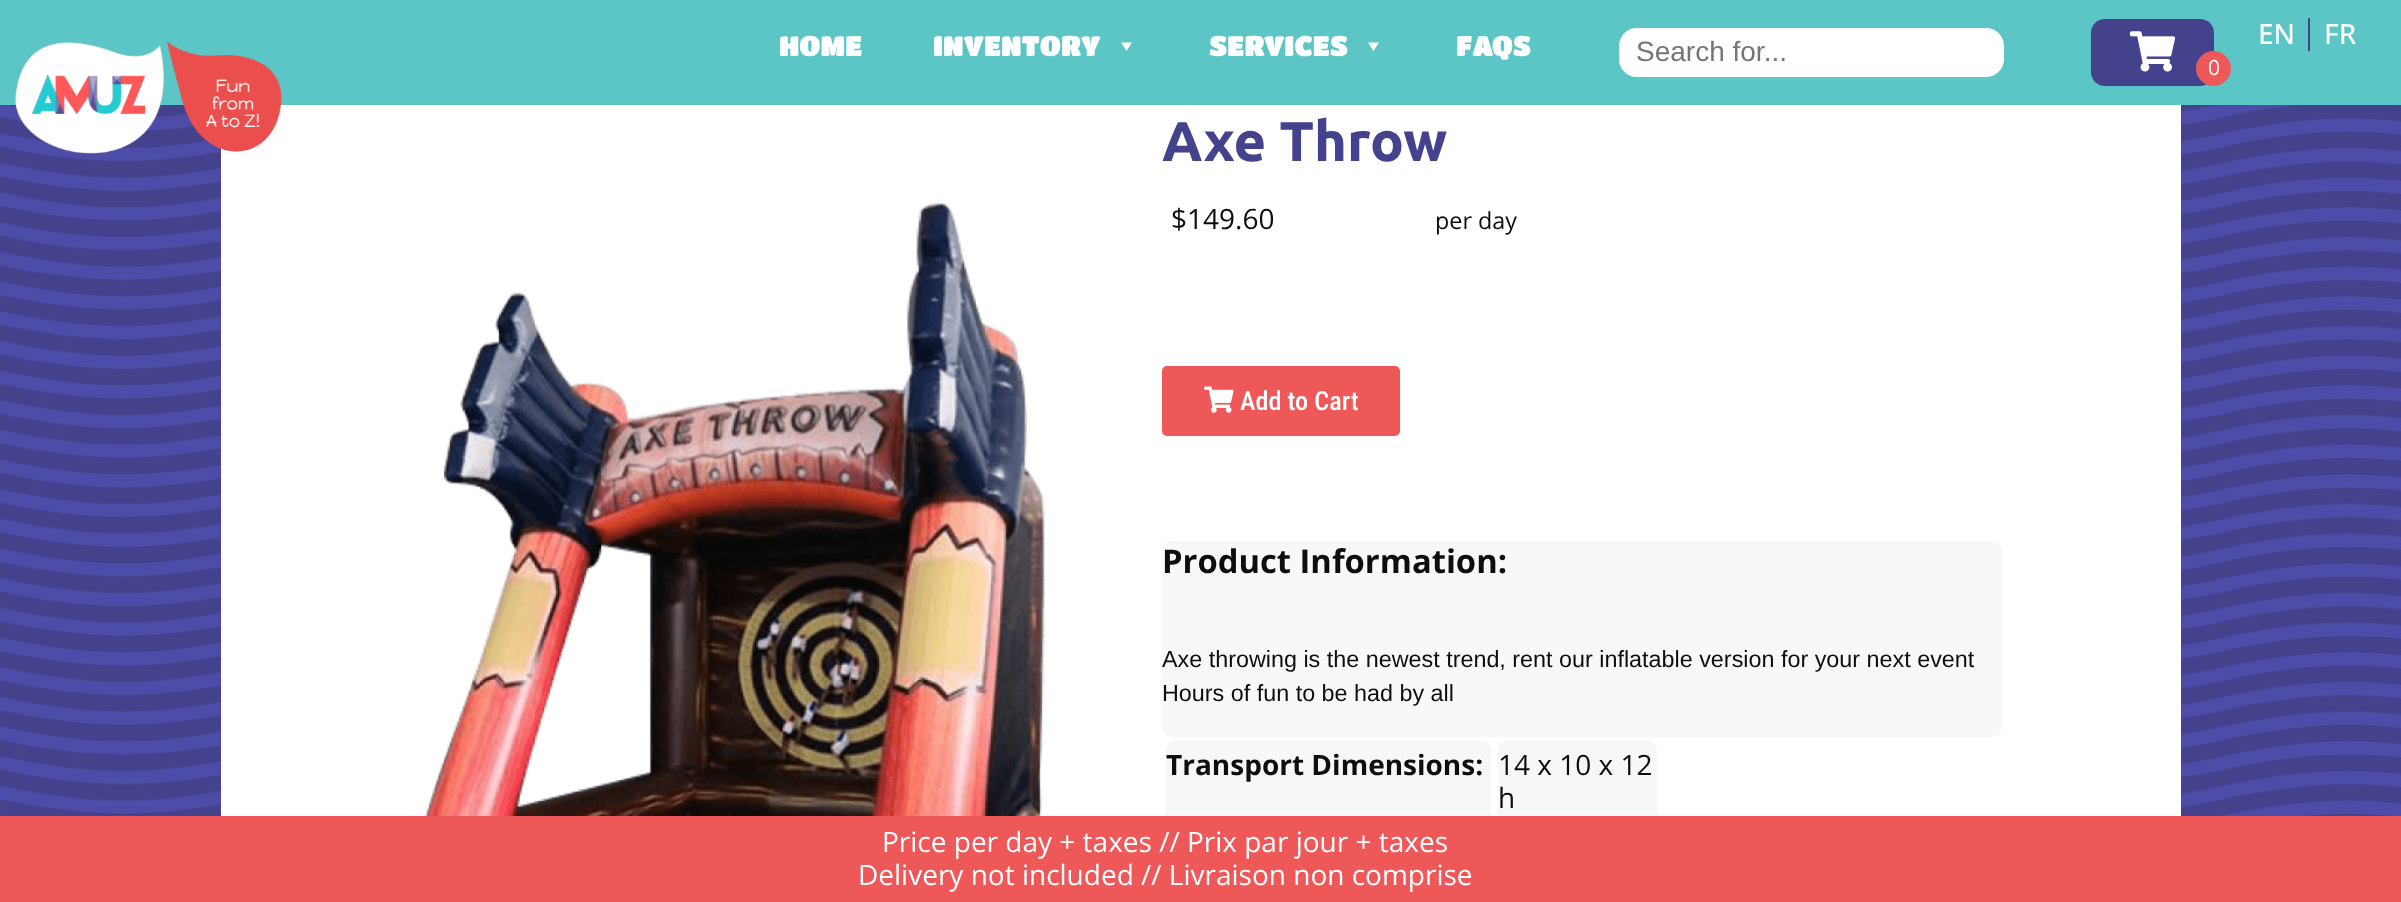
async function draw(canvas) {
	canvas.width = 2401;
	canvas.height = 902;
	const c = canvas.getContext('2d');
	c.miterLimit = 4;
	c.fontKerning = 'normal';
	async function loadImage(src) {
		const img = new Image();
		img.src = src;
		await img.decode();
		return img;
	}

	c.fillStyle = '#44428c';
	c.fillRect(0, 0, 2401, 902);
	c.fillStyle = '#5cc5c6';
	c.fillRect(0, 0, 2401, 105);
	c.drawImage(await loadImage('img3.png'), 0, 105, 2401, 711);
	c.fillStyle = '#fff';
	c.fillRect(221, 105, 1960, 711);
	c.drawImage(await loadImage('img1.png'), 15, 41, 267, 113);
	c.font = '28px Titan One';
	c.fillText('HOME', 779, 56);
	c.fillText('INVENTORY', 933, 56);
	c.beginPath();
	c.moveTo(1132, 42.5);
	c.lineTo(1126.5, 51);
	c.lineTo(1121, 42.5);
	c.closePath();
	c.fill();
	c.fillText('SERVICES', 1209, 56);
	c.beginPath();
	c.moveTo(1379, 42.5);
	c.lineTo(1373.5, 51);
	c.lineTo(1368, 42.5);
	c.closePath();
	c.fill();
	c.fillText('FAQS', 1456, 56);
	c.beginPath();
	c.roundRect(1619, 28, 385, 49, 18);
	c.fill();
	c.font = '28px Liberation Sans';
	c.fillStyle = '#757575';
	c.fillText('Search for...', 1636, 61);
	c.fillStyle = '#44428c';
	c.beginPath();
	c.roundRect(2091, 19, 123, 67, 14);
	c.fill();
	c.drawImage(await loadImage('img2.png'), 2129, 31, 47, 41);
	c.fillStyle = '#ee5859';
	c.beginPath();
	c.arc(2213.5, 68.5, 17.5, 0, 2 * Math.PI);
	c.fill();
	c.font = '21px Open Sans';
	c.fillStyle = '#fff';
	c.fillText('0', 2208, 75);
	c.font = '500 28px Open Sans';
	c.fillText('EN', 2258, 44);
	c.fillStyle = '#44428c';
	c.fillRect(2308, 18, 2, 33);
	c.fillStyle = '#fff';
	c.fillText('FR', 2324, 44);
	c.drawImage(await loadImage('img4.png'), 424, 202, 622, 614);
	c.font = 'bold 56px Ubuntu';
	c.fillStyle = '#44428c';
	c.fillText('Axe Throw', 1162, 161);
	c.font = '28px Open Sans';
	c.fillStyle = '#0e0e0e';
	c.fillText('$149.60', 1171, 229);
	c.font = '23.35px Open Sans';
	c.fillText('per day', 1435, 229);
	c.fillStyle = '#ee5859';
	c.beginPath();
	c.roundRect(1162, 366, 238, 70, 5);
	c.fill();
	c.drawImage(await loadImage('img5.png'), 1204, 386, 30, 27);
	c.font = '500 26.25px Roboto Condensed';
	c.fillStyle = '#fff';
	c.fillText('Add to Cart', 1240, 410);
	c.fillStyle = '#f8f8f8';
	c.beginPath();
	c.roundRect(1162, 541, 840, 196, 11);
	c.fill();
	c.font = 'bold 32.75px Open Sans';
	c.fillStyle = '#0e0e0e';
	c.fillText('Product Information:', 1162, 573);
	c.font = '23.35px Liberation Sans';
	c.fillText('Axe throwing is the newest trend, rent our inflatable version for your next event', 1162, 667);
	c.fillText('Hours of fun to be had by all', 1162, 701);
	c.fillStyle = '#f7f7f7';
	c.beginPath();
	c.roundRect(1166, 740, 325, 84, 11);
	c.fill();
	c.font = 'bold 28px Open Sans';
	c.fillStyle = '#0e0e0e';
	c.fillText('Transport Dimensions:', 1166, 775);
	c.fillStyle = '#f7f7f7';
	c.beginPath();
	c.roundRect(1498, 740, 159, 84, 11);
	c.fill();
	c.font = '28px Open Sans';
	c.fillStyle = '#0e0e0e';
	c.fillText('14 x 10 x 12', 1498, 775);
	c.fillText('h', 1498, 808);
	c.fillStyle = '#ee5859';
	c.fillRect(0, 816, 2401, 86);
	c.fillStyle = '#fff';
	c.fillText('Price per day + taxes // Prix par jour + taxes', 882, 852);
	c.fillText('Delivery not included // Livraison non comprise', 858, 885);
}

draw(document.querySelector('canvas'));
